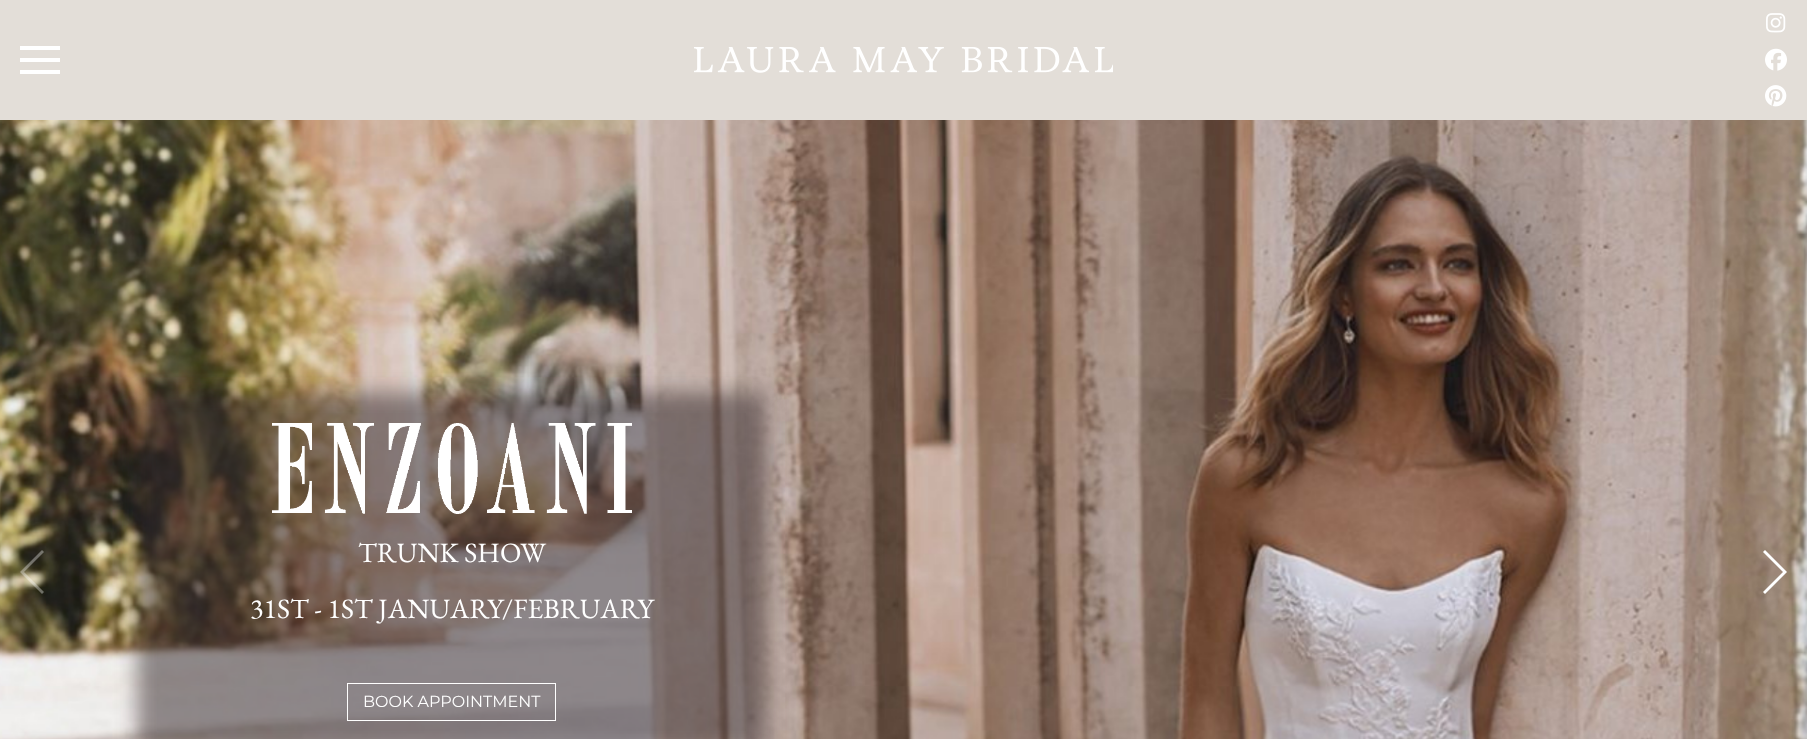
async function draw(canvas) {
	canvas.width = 1807;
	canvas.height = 739;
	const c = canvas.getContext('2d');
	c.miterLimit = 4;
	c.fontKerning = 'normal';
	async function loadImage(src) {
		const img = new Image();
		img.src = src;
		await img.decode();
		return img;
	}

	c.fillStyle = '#fff';
	c.fillRect(0, 0, 1807, 739);
	for (const [x, y, w, h, color] of [
		[0, 0, 1807, 120, '#e3ded8'],
		[20, 46, 40, 4, '#fff'],
		[20, 58, 40, 4, '#fff'],
		[20, 70, 40, 4, '#fff'],
	]) {
		c.fillStyle = color;
		c.fillRect(x, y, w, h);
	}
	c.drawImage(await loadImage('img1.png'), 694, 47, 419, 26);
	c.drawImage(await loadImage('img2.png'), 1766, 13, 20, 20);
	c.drawImage(await loadImage('img3.png'), 1765, 48, 22, 23);
	c.drawImage(await loadImage('img4.png'), 1765, 85, 22, 22);
	c.drawImage(await loadImage('img5.png'), 0, 120, 1807, 619);
	c.fillStyle = '#ffffff59';
	c.beginPath();
	c.moveTo(20, 572);
	c.lineTo(42, 550);
	c.lineTo(44, 552);
	c.lineTo(24, 572);
	c.lineTo(44, 592);
	c.lineTo(42, 594);
	c.closePath();
	c.fill();
	c.save();
	c.beginPath();
	c.moveTo(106, 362);
	c.lineTo(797, 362);
	c.lineTo(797, 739);
	c.lineTo(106, 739);
	c.closePath();
	c.moveTo(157, 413);
	c.lineTo(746, 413);
	c.lineTo(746, 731);
	c.lineTo(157, 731);
	c.closePath();
	c.clip('evenodd');
	c.fillStyle = '#362c2d87';
	c.filter = 'blur(10px)';
	c.beginPath();
	c.rect(137, 393, 629, 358);
	c.fill();
	c.filter = 'none';
	c.restore();
	c.fillStyle = '#362c2d87';
	c.fillRect(157, 413, 589, 318);
	c.drawImage(await loadImage('img6.png'), 272, 423, 360, 91);
	c.font = '28px EB Garamond';
	c.fillStyle = '#fff';
	c.fillText('TRUNK SHOW', 358, 562);
	c.fillText('31ST - 1ST JANUARY/FEBRUARY', 250, 618);
	c.strokeStyle = '#fff';
	c.strokeRect(347.5, 683.5, 208, 37);
	c.font = '16px Montserrat';
	c.fillText('BOOK APPOINTMENT', 363, 707);
	c.beginPath();
	c.moveTo(1787, 572);
	c.lineTo(1765, 594);
	c.lineTo(1763, 592);
	c.lineTo(1783, 572);
	c.lineTo(1763, 552);
	c.lineTo(1765, 550);
	c.closePath();
	c.fill();
}

draw(document.querySelector('canvas'));
